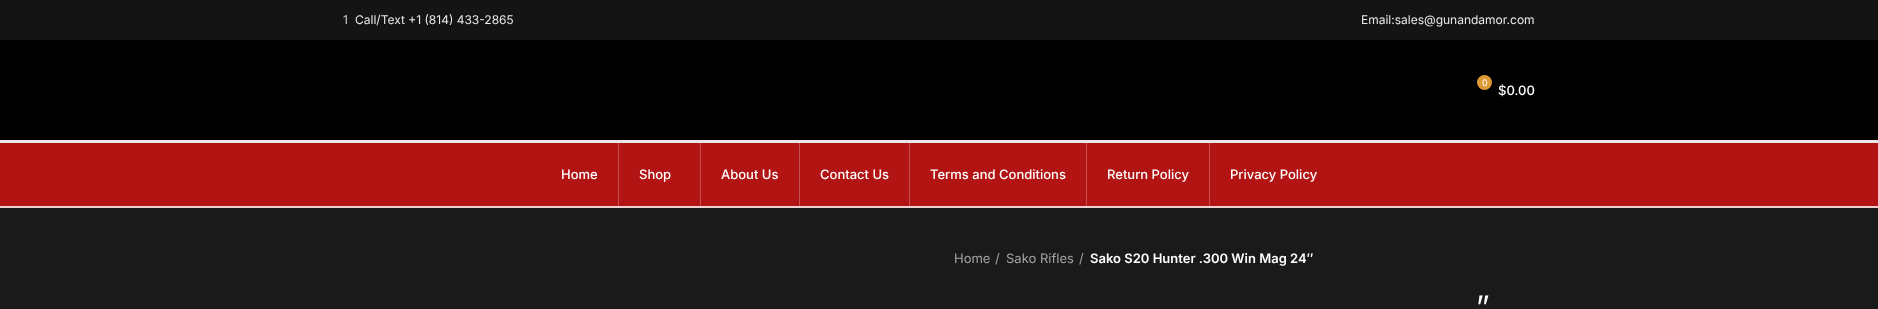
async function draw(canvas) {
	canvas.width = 1878;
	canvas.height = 309;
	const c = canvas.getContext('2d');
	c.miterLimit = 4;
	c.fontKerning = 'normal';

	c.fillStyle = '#1a1a1a';
	c.fillRect(0, 0, 1878, 309);
	c.fillStyle = '#141415';
	c.fillRect(0, 0, 1878, 40);
	c.font = '12px Inter';
	c.fillStyle = '#d0d0d0';
	c.fillText('1', 343, 24);
	c.fillStyle = '#e8e8e8';
	c.fillText('Call/Text +1 (814) 433-2865', 355, 24);
	c.fillText('Email:sales@gunandamor.com', 1361, 24);
	c.fillStyle = '#000';
	c.fillRect(0, 40, 1878, 100);
	c.fillStyle = '#e8e8e8';
	c.fillRect(0, 140, 1878, 3);
	c.fillStyle = '#d93';
	c.beginPath();
	c.arc(1484.5, 82.5, 7.5, 0, 2 * Math.PI);
	c.fill();
	c.font = '9px Inter';
	c.fillStyle = '#fff';
	c.fillText('0', 1482, 86);
	c.font = '500 13px Inter';
	c.fillText('$0.00', 1498, 95);
	c.fillStyle = '#b21414';
	c.fillRect(0, 143, 1878, 63);
	c.fillStyle = '#f0d0d0';
	c.fillRect(0, 206, 1878, 2);
	c.fillStyle = '#fff';
	c.fillText('Home', 561, 179);
	c.fillStyle = '#c54f4f';
	c.fillRect(618, 143, 1, 63);
	c.fillStyle = '#fff';
	c.fillText('Shop', 639, 179);
	c.fillStyle = '#c54f4f';
	c.fillRect(700, 143, 1, 63);
	c.fillStyle = '#fff';
	c.fillText('About Us', 721, 179);
	c.fillStyle = '#c54f4f';
	c.fillRect(799, 143, 1, 63);
	c.fillStyle = '#fff';
	c.fillText('Contact Us', 820, 179);
	c.fillStyle = '#c54f4f';
	c.fillRect(909, 143, 1, 63);
	c.fillStyle = '#fff';
	c.fillText('Terms and Conditions', 930, 179);
	c.fillStyle = '#c54f4f';
	c.fillRect(1086, 143, 1, 63);
	c.fillStyle = '#fff';
	c.fillText('Return Policy', 1107, 179);
	c.fillStyle = '#c54f4f';
	c.fillRect(1209, 143, 1, 63);
	c.fillStyle = '#fff';
	c.fillText('Privacy Policy', 1230, 179);
	c.font = '13px Inter';
	c.fillStyle = '#a3a3a3';
	for (const [text, x, y] of [
		['Home', 954, 263],
		['/', 995, 263],
		['Sako Rifles', 1006, 263],
		['/', 1079, 263],
	]) {
		c.fillText(text, x, y);
	}
	c.font = '600 13px Inter';
	c.fillStyle = '#fff';
	c.fillText('Sako S20 Hunter .300 Win Mag 24″', 1090, 263);
	c.font = '34px Liberation Sans';
	c.fillText('″', 1477, 319);
}

draw(document.querySelector('canvas'));
